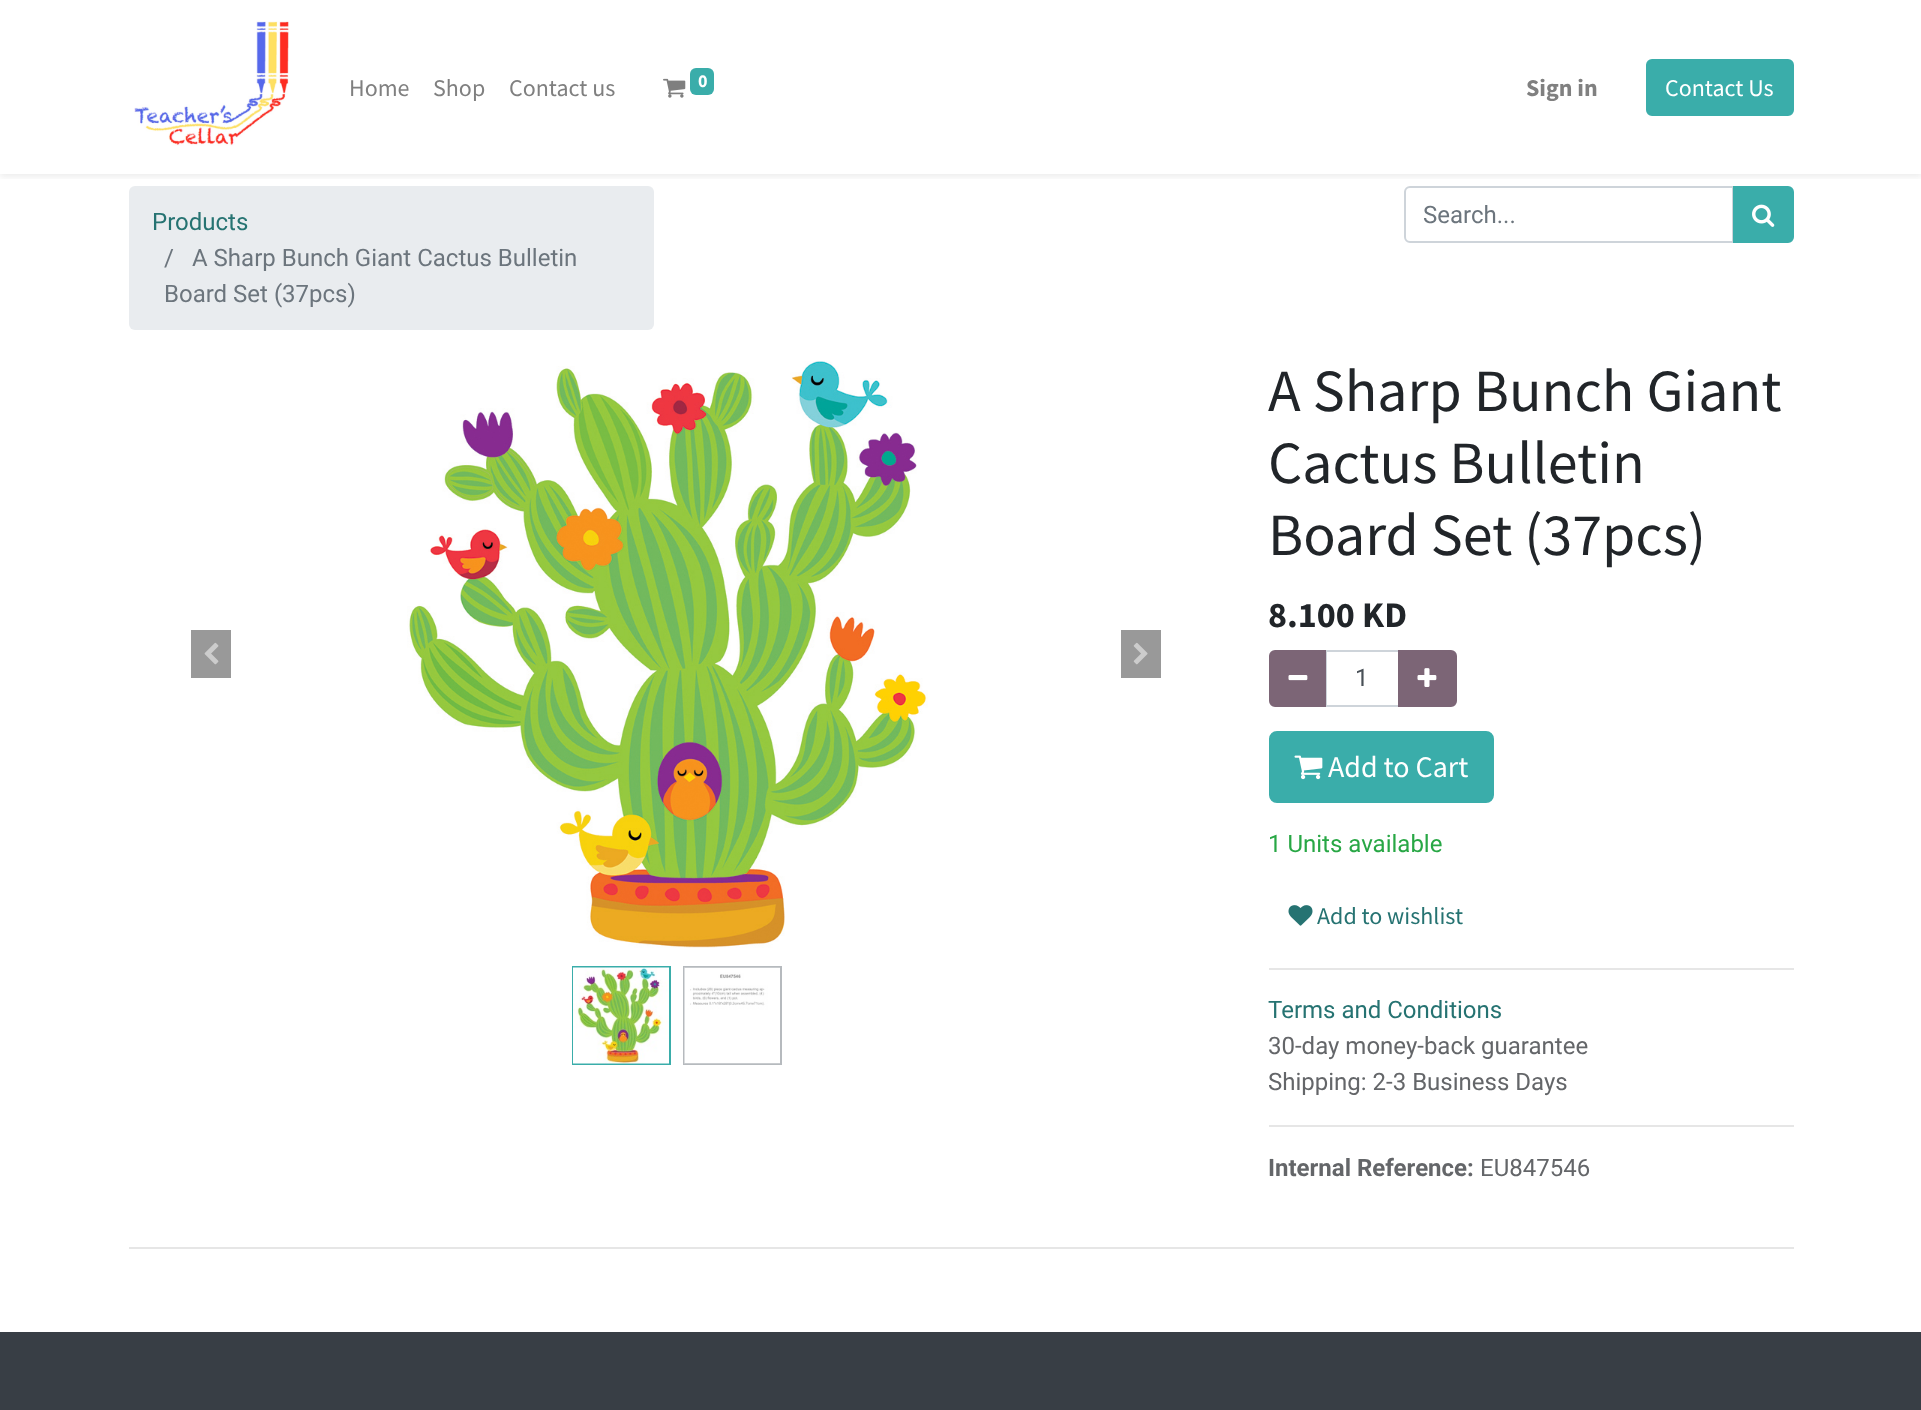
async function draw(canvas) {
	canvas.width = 1921;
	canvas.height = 1410;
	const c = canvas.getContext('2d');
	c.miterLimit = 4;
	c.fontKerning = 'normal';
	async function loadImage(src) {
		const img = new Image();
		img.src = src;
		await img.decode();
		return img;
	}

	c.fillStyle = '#fff';
	c.fillRect(0, 0, 1921, 1410);
	c.fillStyle = '#e9ecef';
	c.beginPath();
	c.roundRect(129, 186, 525, 144, 6);
	c.fill();
	c.beginPath();
	c.roundRect(1405, 187, 328, 55, [5, 0, 0, 5]);
	c.strokeStyle = '#ced4da';
	c.lineWidth = 2;
	c.stroke();
	c.fillStyle = '#3aadaa';
	c.beginPath();
	c.roundRect(1734, 187, 59, 55, [0, 5, 5, 0]);
	c.fill();
	c.strokeStyle = '#3aadaa';
	c.stroke();
	c.save();
	c.beginPath();
	c.rect(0, 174, 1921, 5);
	c.clip();
	c.fillStyle = '#00000012';
	c.filter = 'blur(3px)';
	c.beginPath();
	c.rect(0, 3, 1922, 174);
	c.fill();
	c.filter = 'none';
	c.restore();
	c.drawImage(await loadImage('img1.png'), 134, 21, 155, 125);
	c.font = '24px Source Sans Pro';
	c.fillStyle = '#808080';
	for (const [text, x, y] of [
		['Home', 349, 96],
		['Shop', 433, 96],
		['Contact us', 509, 96],
	]) {
		c.fillText(text, x, y);
	}
	c.drawImage(await loadImage('img2.png'), 663, 78, 23, 20);
	c.fillStyle = '#3aadaa';
	c.beginPath();
	c.roundRect(690, 68, 24, 27, 6);
	c.fill();
	c.font = 'bold 18px Source Sans Pro';
	c.fillStyle = '#fff';
	c.fillText('0', 698, 87);
	c.font = 'bold 24px Source Sans Pro';
	c.fillStyle = '#808080';
	c.fillText('Sign in', 1526, 96);
	c.fillStyle = '#3aadaa';
	c.beginPath();
	c.roundRect(1647, 60, 146, 55, 5);
	c.fill();
	c.stroke();
	c.font = '24px Source Sans Pro';
	c.fillStyle = '#fff';
	c.fillText('Contact Us', 1665, 96);
	c.font = '24px Roboto';
	c.fillStyle = '#267372';
	c.fillText('Products', 152, 230);
	c.fillStyle = '#6c757d';
	for (const [text, x, y] of [
		['/', 164, 266],
		['A Sharp Bunch Giant Cactus Bulletin', 192, 266],
		['Board Set (37pcs)', 164, 302],
		['Search...', 1423, 223],
	]) {
		c.fillText(text, x, y);
	}
	c.drawImage(await loadImage('img3.png'), 1752, 204, 23, 23);
	c.fillStyle = '#999';
	c.fillRect(191, 630, 40, 48);
	c.drawImage(await loadImage('img4.png'), 204, 642, 15, 23);
	c.drawImage(await loadImage('img5.png'), 407, 361, 521, 587);
	c.fillRect(1121, 630, 40, 48);
	c.drawImage(await loadImage('img6.png'), 1133, 642, 15, 23);
	c.strokeRect(573, 967, 97, 97);
	c.drawImage(await loadImage('img7.png'), 573, 967, 96, 97);
	c.strokeStyle = '#b6babe';
	c.strokeRect(684, 967, 97, 97);
	c.drawImage(await loadImage('img8.png'), 684, 967, 96, 97);
	c.font = '60px Source Sans Pro';
	c.fillStyle = '#212529';
	for (const [text, x, y] of [
		['A Sharp Bunch Giant', 1268, 411],
		['Cactus Bulletin', 1268, 483],
		['Board Set (37pcs)', 1268, 555],
	]) {
		c.fillText(text, x, y);
	}
	c.font = 'bold 36px Source Sans Pro';
	c.fillText('8.100 KD', 1268, 627);
	c.strokeStyle = '#ced4da';
	c.strokeRect(1326, 651, 73, 55);
	c.fillStyle = '#7c6576';
	c.beginPath();
	c.roundRect(1270, 651, 55, 55, [5, 0, 0, 5]);
	c.fill();
	c.strokeStyle = '#7c6576';
	c.stroke();
	c.drawImage(await loadImage('img9.png'), 1288, 675, 20, 6);
	c.font = '24px Roboto';
	c.fillStyle = '#495057';
	c.fillText('1', 1355, 686);
	c.fillStyle = '#7c6576';
	c.beginPath();
	c.roundRect(1399, 651, 57, 55, [0, 5, 5, 0]);
	c.fill();
	c.stroke();
	c.drawImage(await loadImage('img10.png'), 1417, 668, 20, 19);
	c.fillStyle = '#3aadaa';
	c.beginPath();
	c.roundRect(1270, 732, 223, 70, 7);
	c.fill();
	c.strokeStyle = '#3aadaa';
	c.stroke();
	c.drawImage(await loadImage('img11.png'), 1294, 755, 29, 25);
	c.font = '30px Source Sans Pro';
	c.fillStyle = '#fff';
	c.fillText('Add to Cart', 1328, 777);
	c.font = '24px Roboto';
	c.fillStyle = '#28a745';
	c.fillText('1 Units available', 1268, 852);
	c.drawImage(await loadImage('img12.png'), 1288, 905, 25, 21);
	c.font = '24px Source Sans Pro';
	c.fillStyle = '#267372';
	c.fillText('Add to wishlist', 1317, 924);
	c.fillStyle = '#e6e6e6';
	c.fillRect(1269, 968, 525, 2);
	c.font = '24px Roboto';
	c.fillStyle = '#267372';
	c.fillText('Terms and Conditions', 1268, 1018);
	c.fillStyle = '#646669';
	c.fillText('30-day money-back guarantee', 1268, 1054);
	c.fillText('Shipping: 2-3 Business Days', 1268, 1090);
	c.fillStyle = '#e6e6e6';
	c.fillRect(1269, 1125, 525, 2);
	c.font = 'bold 24px Roboto';
	c.fillStyle = '#646669';
	c.fillText('Internal Reference:', 1268, 1176);
	c.font = '24px Roboto';
	c.fillText('EU847546', 1480, 1176);
	c.fillStyle = '#e6e6e6';
	c.fillRect(129, 1247, 1665, 2);
	c.fillStyle = '#383e45';
	c.fillRect(0, 1332, 1921, 78);
}

draw(document.querySelector('canvas'));
